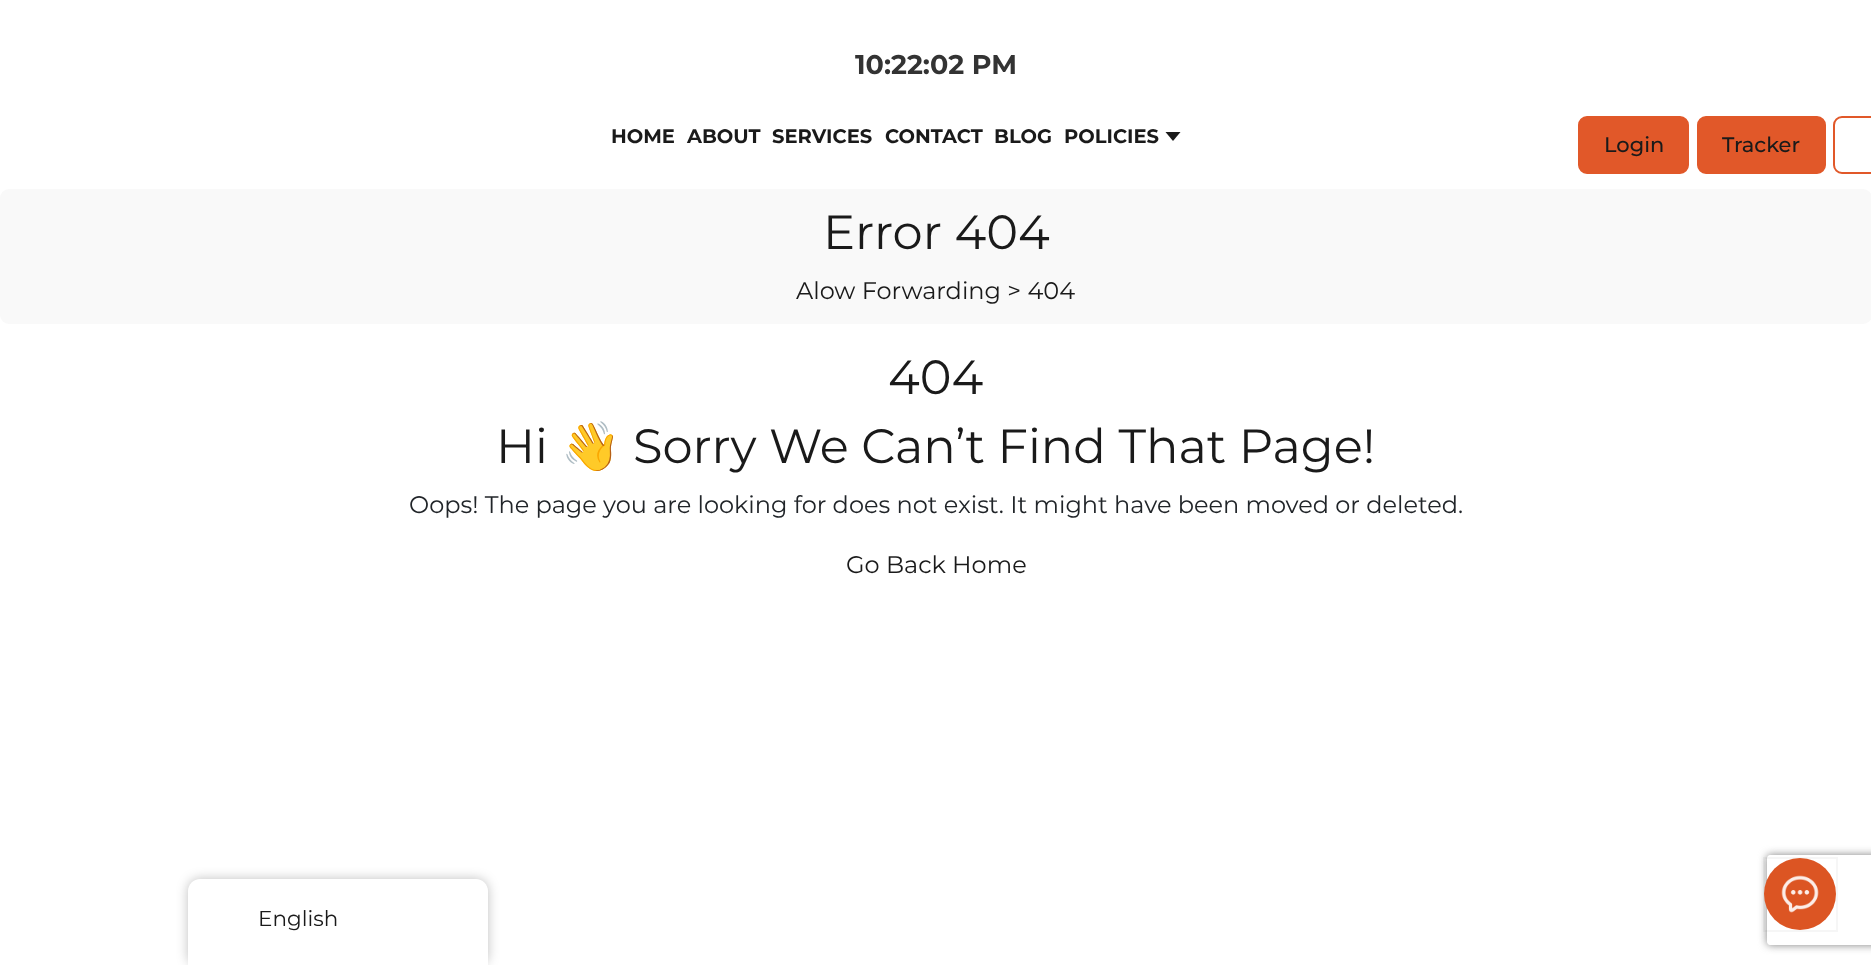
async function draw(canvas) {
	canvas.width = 1871;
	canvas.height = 965;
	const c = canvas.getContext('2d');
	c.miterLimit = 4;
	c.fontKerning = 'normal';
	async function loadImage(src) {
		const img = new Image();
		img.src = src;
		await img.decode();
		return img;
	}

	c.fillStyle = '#fff';
	c.fillRect(0, 0, 1871, 965);
	c.font = 'bold 27px Montserrat';
	c.fillStyle = '#333';
	c.fillText('10:22:02 PM', 855, 74);
	c.font = 'bold 19.5px Montserrat';
	c.fillStyle = '#1a1a1a';
	for (const [text, x, y] of [
		['HOME', 611, 143],
		['ABOUT', 687, 143],
		['SERVICES', 772, 143],
		['CONTACT', 885, 143],
		['BLOG', 994, 143],
		['POLICIES', 1064, 143],
	]) {
		c.fillText(text, x, y);
	}
	c.beginPath();
	c.moveTo(1165.5, 132);
	c.lineTo(1180.5, 132);
	c.lineTo(1173, 141);
	c.closePath();
	c.fill();
	c.fillStyle = '#e15829';
	c.beginPath();
	c.roundRect(1579, 117, 109, 56, 8);
	c.fill();
	c.strokeStyle = '#e15829';
	c.lineWidth = 2;
	c.stroke();
	c.font = '500 21px Montserrat';
	c.fillStyle = '#1a1a1a';
	c.fillText('Login', 1604, 152);
	c.fillStyle = '#e15829';
	c.beginPath();
	c.roundRect(1698, 117, 127, 56, 8);
	c.fill();
	c.stroke();
	c.fillStyle = '#1a1a1a';
	c.fillText('Tracker', 1722, 152);
	c.beginPath();
	c.roundRect(1834, 117, 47, 56, 8);
	c.stroke();
	c.fillStyle = '#f9f9f9';
	c.beginPath();
	c.roundRect(0, 189, 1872, 135, 9);
	c.fill();
	c.font = '48px Montserrat';
	c.fillStyle = '#1a1a1a';
	c.fillText('Error 404', 823, 249);
	c.font = '24px Montserrat';
	c.fillText('Alow Forwarding > 404', 796, 299);
	c.font = '48px Montserrat';
	c.fillText('404', 888, 394);
	c.fillText('Hi', 496, 463);
	c.font = '48px Noto Color Emoji';
	c.fillText('👋', 561, 463);
	c.font = '48px Montserrat';
	c.fillText('Sorry We Can’t Find That Page!', 633, 463);
	c.font = '24px Montserrat';
	c.fillStyle = '#212529';
	c.fillText('Oops! The page you are looking for does not exist. It might have been moved or deleted.', 409, 513);
	c.fillStyle = '#1a1a1a';
	c.fillText('Go Back Home', 846, 573);
	c.fillStyle = '#00000040';
	c.filter = 'blur(6px)';
	c.beginPath();
	c.roundRect(188, 879, 300, 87, 12);
	c.fill();
	c.filter = 'none';
	c.fillStyle = '#fff';
	c.beginPath();
	c.moveTo(200, 879);
	c.lineTo(476, 879);
	c.bezierCurveTo(482.5, 879, 488, 884.5, 488, 891);
	c.lineTo(488, 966);
	c.lineTo(188, 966);
	c.lineTo(188, 891);
	c.bezierCurveTo(188, 884.5, 193.5, 879, 200, 879);
	c.closePath();
	c.fill();
	c.font = '21.5px Montserrat';
	c.fillStyle = '#1a1a1a';
	c.fillText('English', 258, 926);
	c.save();
	c.beginPath();
	c.moveTo(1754, 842);
	c.lineTo(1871, 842);
	c.lineTo(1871, 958);
	c.lineTo(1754, 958);
	c.closePath();
	c.moveTo(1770, 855);
	c.lineTo(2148, 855);
	c.bezierCurveTo(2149.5, 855, 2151, 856.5, 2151, 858);
	c.lineTo(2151, 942);
	c.bezierCurveTo(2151, 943.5, 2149.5, 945, 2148, 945);
	c.lineTo(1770, 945);
	c.bezierCurveTo(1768.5, 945, 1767, 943.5, 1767, 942);
	c.lineTo(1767, 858);
	c.bezierCurveTo(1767, 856.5, 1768.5, 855, 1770, 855);
	c.closePath();
	c.clip('evenodd');
	c.fillStyle = '#808080';
	c.filter = 'blur(4px)';
	c.beginPath();
	c.roundRect(1767, 855, 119, 90, 3);
	c.fill();
	c.filter = 'none';
	c.restore();
	c.strokeStyle = '#161a1e0a';
	c.strokeRect(1764, 858, 73, 73);
	c.fillStyle = '#dc5523';
	c.beginPath();
	c.arc(1800, 894, 36, 0, 2 * Math.PI);
	c.fill();
	c.drawImage(await loadImage('img1.png'), 1781, 875, 38, 38);
}

draw(document.querySelector('canvas'));
